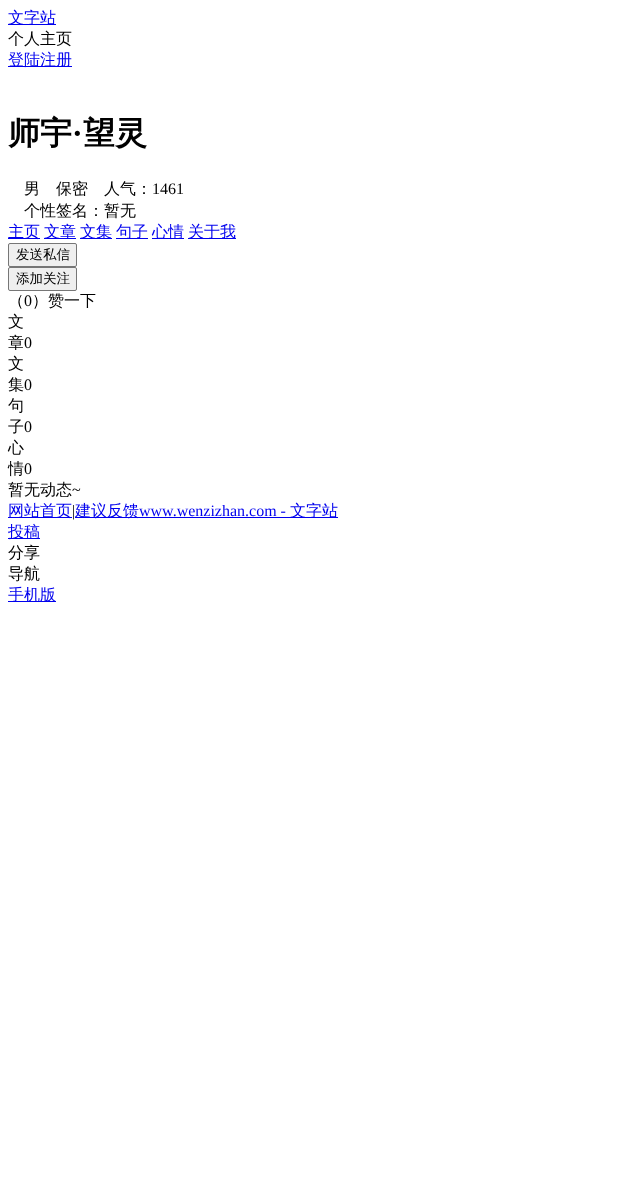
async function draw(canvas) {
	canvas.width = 620;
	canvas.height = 1179;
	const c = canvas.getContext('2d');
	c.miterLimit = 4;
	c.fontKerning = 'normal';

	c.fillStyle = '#fff';
	c.fillRect(0, 0, 620, 1179);
	c.fillStyle = '#00e';
	c.fillRect(8, 24, 48, 1);
	c.font = '500 16px WenQuanYi Zen Hei';
	c.fillText('文字站', 8, 23);
	c.fillStyle = '#000';
	c.fillText('个人主页', 8, 44);
	c.fillStyle = '#00e';
	c.fillRect(8, 66, 64, 1);
	c.fillText('登陆注册', 8, 65);
	c.font = 'bold 32px WenQuanYi Zen Hei';
	c.fillStyle = '#000';
	c.fillText('师宇', 8, 144);
	c.font = 'bold 32px Liberation Serif';
	c.fillText('·', 72, 144);
	c.font = 'bold 32px WenQuanYi Zen Hei';
	c.fillText('望灵', 83, 144);
	c.font = '500 16px WenQuanYi Zen Hei';
	for (const [text, x, y] of [
		['男', 24, 194],
		['保密', 56, 194],
		['人气：', 104, 194],
	]) {
		c.fillText(text, x, y);
	}
	c.font = '16px Liberation Serif';
	c.fillText('1461', 152, 194);
	c.font = '500 16px WenQuanYi Zen Hei';
	c.fillText('个性签名：暂无', 24, 216);
	c.fillStyle = '#00e';
	c.fillRect(8, 238, 32, 1);
	c.fillText('主页', 8, 237);
	c.fillRect(44, 238, 32, 1);
	c.fillText('文章', 44, 237);
	c.fillRect(80, 238, 32, 1);
	c.fillText('文集', 80, 237);
	c.fillRect(116, 238, 32, 1);
	c.fillText('句子', 116, 237);
	c.fillRect(152, 238, 32, 1);
	c.fillText('心情', 152, 237);
	c.fillRect(188, 238, 48, 1);
	c.fillText('关于我', 188, 237);
	c.fillStyle = '#efefef';
	c.beginPath();
	c.roundRect(8.5, 243.5, 68, 23, 1.5);
	c.fill();
	c.strokeStyle = '#767676';
	c.stroke();
	c.font = '500 13.5px WenQuanYi Zen Hei';
	c.fillStyle = '#000';
	c.fillText('发送私信', 16, 259);
	c.fillStyle = '#efefef';
	c.beginPath();
	c.roundRect(8.5, 267.5, 68, 23, 1.5);
	c.fill();
	c.stroke();
	c.fillStyle = '#000';
	c.fillText('添加关注', 16, 283);
	c.font = '500 16px WenQuanYi Zen Hei';
	c.fillText('（', 8, 306);
	c.font = '16px Liberation Serif';
	c.fillText('0', 24, 306);
	c.font = '500 16px WenQuanYi Zen Hei';
	for (const [text, x, y] of [
		['）赞一下', 32, 306],
		['文', 8, 327],
		['章', 8, 348],
	]) {
		c.fillText(text, x, y);
	}
	c.font = '16px Liberation Serif';
	c.fillText('0', 24, 348);
	c.font = '500 16px WenQuanYi Zen Hei';
	c.fillText('文', 8, 369);
	c.fillText('集', 8, 390);
	c.font = '16px Liberation Serif';
	c.fillText('0', 24, 390);
	c.font = '500 16px WenQuanYi Zen Hei';
	c.fillText('句', 8, 411);
	c.fillText('子', 8, 432);
	c.font = '16px Liberation Serif';
	c.fillText('0', 24, 432);
	c.font = '500 16px WenQuanYi Zen Hei';
	c.fillText('心', 8, 453);
	c.fillText('情', 8, 474);
	c.font = '16px Liberation Serif';
	c.fillText('0', 24, 474);
	c.font = '500 16px WenQuanYi Zen Hei';
	c.fillText('暂无动态', 8, 495);
	c.font = '16px Liberation Serif';
	c.fillText('~', 72, 495);
	c.fillStyle = '#00e';
	c.fillRect(8, 517, 64, 1);
	c.font = '500 16px WenQuanYi Zen Hei';
	c.fillText('网站首页', 8, 516);
	c.font = '16px Liberation Serif';
	c.fillStyle = '#000';
	c.fillText('|', 72, 516);
	c.fillStyle = '#00e';
	c.fillRect(75, 517, 263, 1);
	c.font = '500 16px WenQuanYi Zen Hei';
	c.fillText('建议反馈', 75, 516);
	c.font = '16px Liberation Serif';
	c.fillText('www.wenzizhan.com -', 139, 516);
	c.font = '500 16px WenQuanYi Zen Hei';
	c.fillText('文字站', 290, 516);
	c.fillRect(8, 538, 32, 1);
	c.fillText('投稿', 8, 537);
	c.fillStyle = '#000';
	c.fillText('分享', 8, 558);
	c.fillText('导航', 8, 579);
	c.fillStyle = '#00e';
	c.fillRect(8, 601, 48, 1);
	c.fillText('手机版', 8, 600);
}

draw(document.querySelector('canvas'));
